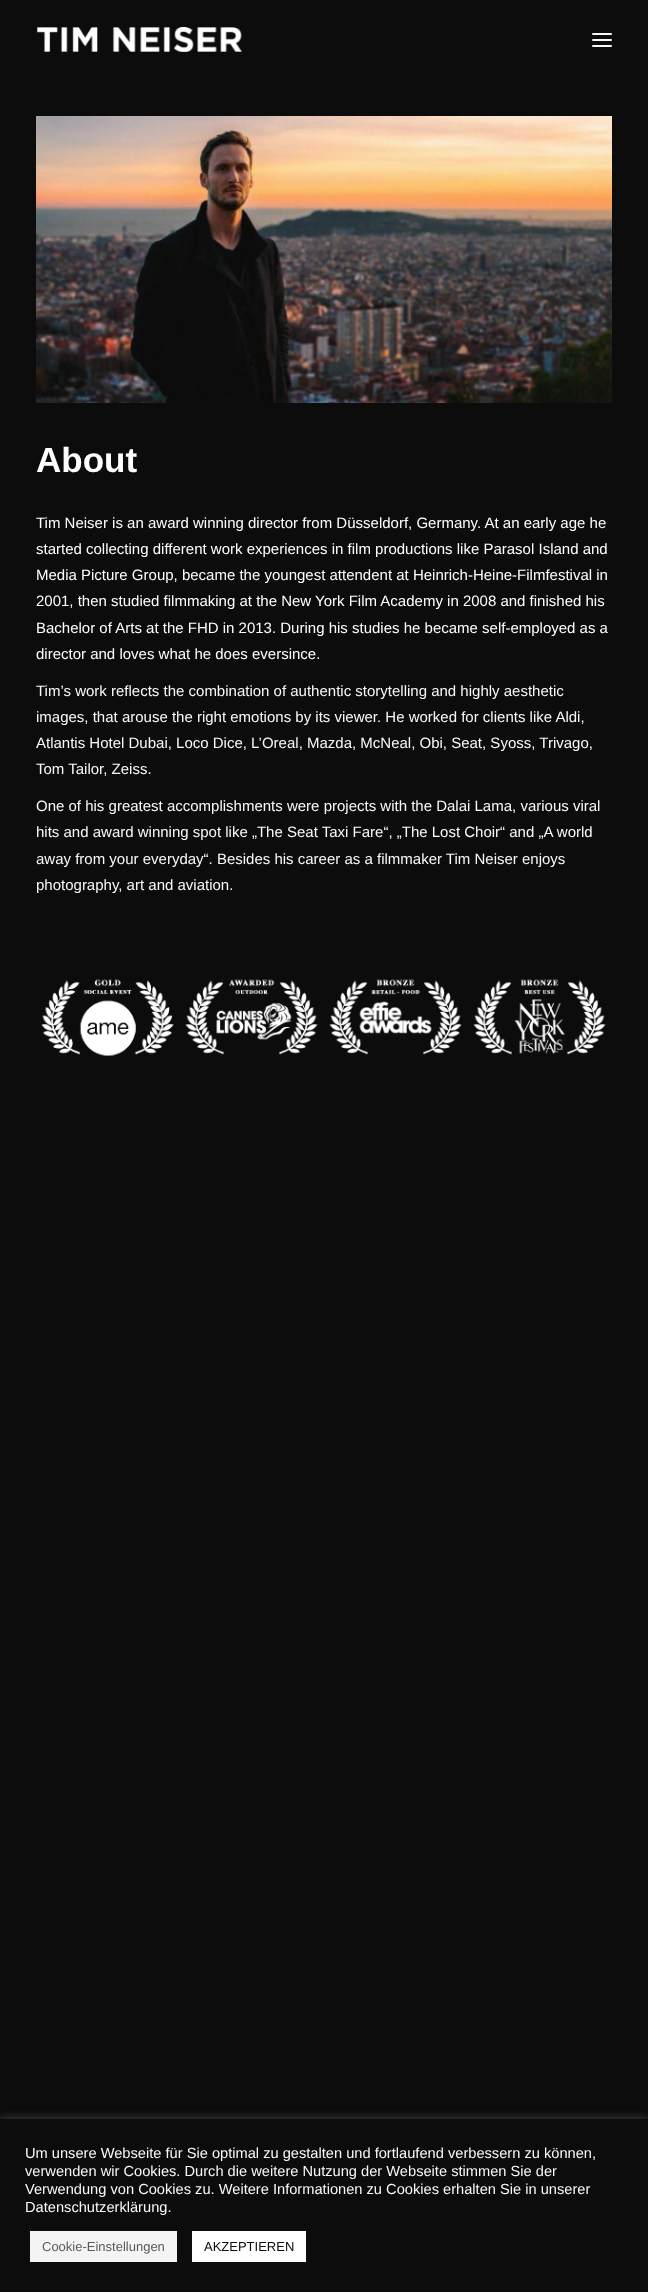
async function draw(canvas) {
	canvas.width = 648;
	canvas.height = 2292;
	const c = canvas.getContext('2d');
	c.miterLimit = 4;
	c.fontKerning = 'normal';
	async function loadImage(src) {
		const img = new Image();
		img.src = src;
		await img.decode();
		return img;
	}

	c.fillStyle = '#0c0c0c';
	c.fillRect(0, 0, 648, 2292);
	c.drawImage(await loadImage('img1.png'), 36, 27, 207, 25);
	c.fillStyle = '#f9f9f9';
	c.beginPath();
	c.roundRect(592, 39, 20, 2, 1);
	c.fill();
	c.beginPath();
	c.roundRect(592, 33, 20, 2, 1);
	c.fill();
	c.beginPath();
	c.roundRect(592, 45, 20, 2, 1);
	c.fill();
	c.drawImage(await loadImage('img2.png'), 36, 116, 576, 287);
	c.font = 'bold 35px Liberation Sans';
	c.fillStyle = '#fff';
	c.fillText('About', 36, 472);
	c.font = '15px Liberation Sans';
	for (const [text, x, y] of [
		['Tim Neiser is an award winning director from Düsseldorf, Germany. At an early age he', 36, 528],
		['started collecting different work experiences in film productions like Parasol Island and', 36, 554],
		['Media Picture Group, became the youngest attendent at Heinrich-Heine-Filmfestival in', 36, 580],
		['2001, then studied filmmaking at the New York Film Academy in 2008 and finished his', 36, 606],
		['Bachelor of Arts at the FHD in 2013. During his studies he became self-employed as a', 36, 633],
		['director and loves what he does eversince.', 36, 659],
	]) {
		c.fillText(text, x, y);
	}
	c.fillStyle = '#f9f9f9';
	for (const [text, x, y] of [
		['Tim’s work reflects the combination of authentic storytelling and highly aesthetic', 36, 696],
		['images, that arouse the right emotions by its viewer. He worked for clients like Aldi,', 36, 722],
		['Atlantis Hotel Dubai, Loco Dice, L’Oreal, Mazda, McNeal, Obi, Seat, Syoss, Trivago,', 36, 748],
		['Tom Tailor, Zeiss.', 36, 774],
		['One of his greatest accomplishments were projects with the Dalai Lama, various viral', 36, 811],
		['hits and award winning spot like „The Seat Taxi Fare“, „The Lost Choir“ and „A world', 36, 837],
		['away from your everyday“. Besides his career as a filmmaker Tim Neiser enjoys', 36, 864],
		['photography, art and aviation.', 36, 890],
	]) {
		c.fillText(text, x, y);
	}
	c.drawImage(await loadImage('img3.png'), 41, 979, 133, 77);
	c.drawImage(await loadImage('img4.png'), 185, 979, 133, 76);
	c.drawImage(await loadImage('img5.png'), 329, 979, 133, 76);
	c.drawImage(await loadImage('img6.png'), 473, 979, 133, 76);
	c.fillStyle = '#acabab4d';
	c.filter = 'blur(5px)';
	c.beginPath();
	c.rect(0, 2118, 648, 173);
	c.fill();
	c.filter = 'none';
	c.fillStyle = '#0c0c0c';
	c.fillRect(0, 2119, 648, 173);
	c.font = '14.65px Liberation Sans';
	c.fillStyle = '#f9f9f9';
	for (const [text, x, y] of [
		['Um unsere Webseite für Sie optimal zu gestalten und fortlaufend verbessern zu können,', 25, 2158],
		['verwenden wir Cookies. Durch die weitere Nutzung der Webseite stimmen Sie der', 25, 2176],
		['Verwendung von Cookies zu. Weitere Informationen zu Cookies erhalten Sie in unserer', 25, 2194],
		['Datenschutzerklärung.', 25, 2212],
	]) {
		c.fillText(text, x, y);
	}
	c.fillStyle = '#f4f4f4';
	c.fillRect(30, 2231, 147, 31);
	c.font = '13px Liberation Sans';
	c.fillStyle = '#595959';
	c.fillText('Cookie-Einstellungen', 42, 2251);
	c.fillStyle = '#fff';
	c.fillRect(192, 2231, 114, 31);
	c.fillStyle = '#0c0c0c';
	c.fillText('AKZEPTIEREN', 204, 2251);
}

draw(document.querySelector('canvas'));
